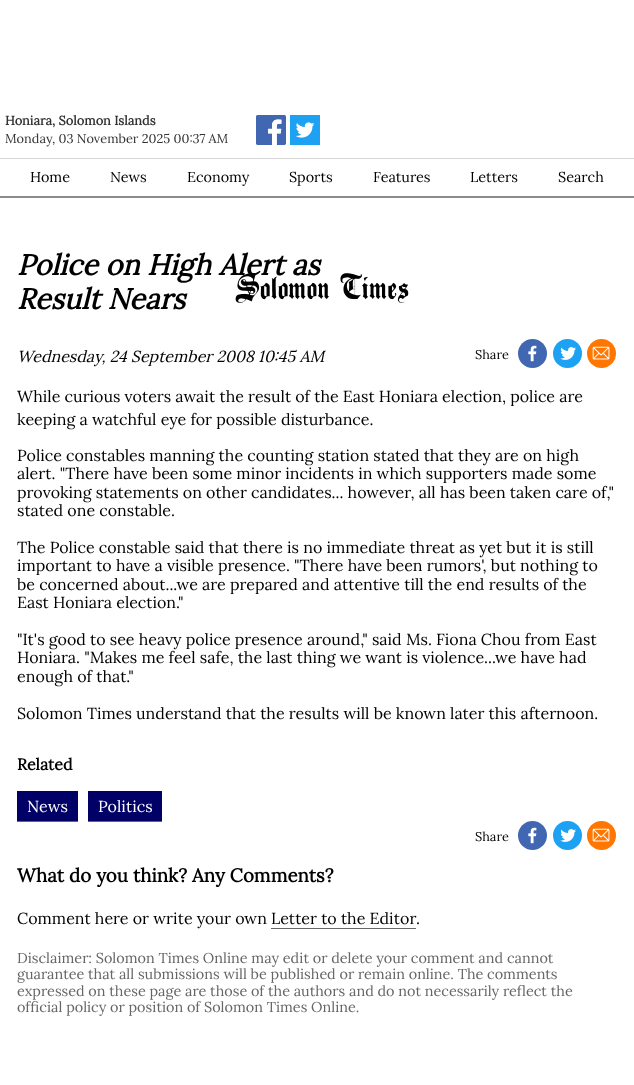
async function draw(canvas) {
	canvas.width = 634;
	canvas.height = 1085;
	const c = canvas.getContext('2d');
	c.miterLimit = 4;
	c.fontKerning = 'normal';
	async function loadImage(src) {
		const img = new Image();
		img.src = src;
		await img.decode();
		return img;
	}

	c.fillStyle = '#fff';
	c.fillRect(0, 0, 634, 1085);
	c.fillStyle = '#8c8a8a';
	c.fillRect(0, 196, 634, 2);
	c.font = 'bold 12.75px Lora';
	c.fillStyle = '#333';
	c.fillText('Honiara, Solomon Islands', 5, 125);
	c.font = '12.75px Lora';
	c.fillText('Monday, 03 November 2025 00:37 AM', 5, 143);
	c.drawImage(await loadImage('img1.png'), 256, 115, 30, 30);
	c.drawImage(await loadImage('img2.png'), 290, 115, 30, 30);
	c.fillStyle = '#d6d5d5';
	c.fillRect(0, 158, 634, 1);
	c.font = '14.4px Lora';
	c.fillStyle = '#000';
	for (const [text, x, y] of [
		['Home', 30, 182],
		['News', 110, 182],
		['Economy', 187, 182],
		['Sports', 289, 182],
		['Features', 373, 182],
		['Letters', 470, 182],
		['Search', 558, 182],
	]) {
		c.fillText(text, x, y);
	}
	c.font = 'italic bold 28.75px Lora';
	c.fillText('Police on High Alert as', 17, 275);
	c.drawImage(await loadImage('img3.png'), 235, 273, 174, 30);
	c.fillText('Result Nears', 17, 309);
	c.font = 'italic 16px Lora';
	c.fillText('Wednesday, 24 September 2008 10:45 AM', 17, 362);
	c.fillStyle = '#4267b2';
	c.beginPath();
	c.arc(532.5, 353.5, 14.5, 0, 2 * Math.PI);
	c.fill();
	c.fillStyle = '#1da1f2';
	c.beginPath();
	c.arc(567.5, 353.5, 14.5, 0, 2 * Math.PI);
	c.fill();
	c.fillStyle = '#ff7600';
	c.beginPath();
	c.arc(601.5, 353.5, 14.5, 0, 2 * Math.PI);
	c.fill();
	c.font = '12.75px Lora';
	c.fillStyle = '#000';
	c.fillText('Share', 475, 359);
	c.drawImage(await loadImage('img4.png'), 528, 345, 9, 17);
	c.drawImage(await loadImage('img5.png'), 560, 347, 16, 13);
	c.drawImage(await loadImage('img6.png'), 592, 346, 18, 14);
	c.font = '16px Lora';
	for (const [text, x, y] of [
		['While curious voters await the result of the East Honiara election, police are', 17, 402],
		['keeping a watchful eye for possible disturbance.', 17, 425],
		['Police constables manning the counting station stated that they are on high', 17, 461],
		['alert. "There have been some minor incidents in which supporters made some', 17, 479],
		['provoking statements on other candidates... however, all has been taken care of,"', 17, 498],
		['stated one constable.', 17, 516],
		['The Police constable said that there is no immediate threat as yet but it is still', 17, 553],
		['important to have a visible presence. "There have been rumors\', but nothing to', 17, 571],
		['be concerned about...we are prepared and attentive till the end results of the', 17, 590],
		['East Honiara election."', 17, 608],
		['"It\'s good to see heavy police presence around," said Ms. Fiona Chou from East', 17, 645],
		['Honiara. "Makes me feel safe, the last thing we want is violence...we have had', 17, 663],
		['enough of that."', 17, 682],
		['Solomon Times understand that the results will be known later this afternoon.', 17, 719],
	]) {
		c.fillText(text, x, y);
	}
	c.font = 'bold 16px Lora';
	c.fillText('Related', 17, 770);
	c.fillStyle = '#006';
	c.fillRect(17, 791, 61, 30);
	c.font = '16px Lora';
	c.fillStyle = '#fff';
	c.fillText('News', 27, 812);
	c.fillStyle = '#666';
	c.fillRect(17, 821, 61, 1);
	c.fillStyle = '#006';
	c.fillRect(88, 791, 74, 30);
	c.fillStyle = '#fff';
	c.fillText('Politics', 98, 812);
	c.fillStyle = '#666';
	c.fillRect(88, 821, 74, 1);
	c.fillStyle = '#4267b2';
	c.beginPath();
	c.arc(532.5, 835.5, 14.5, 0, 2 * Math.PI);
	c.fill();
	c.fillStyle = '#1da1f2';
	c.beginPath();
	c.arc(567.5, 835.5, 14.5, 0, 2 * Math.PI);
	c.fill();
	c.fillStyle = '#ff7600';
	c.beginPath();
	c.arc(601.5, 835.5, 14.5, 0, 2 * Math.PI);
	c.fill();
	c.font = '12.75px Lora';
	c.fillStyle = '#000';
	c.fillText('Share', 475, 841);
	c.drawImage(await loadImage('img4.png'), 528, 827, 9, 17);
	c.drawImage(await loadImage('img5.png'), 560, 829, 16, 13);
	c.drawImage(await loadImage('img6.png'), 592, 828, 18, 14);
	c.font = 'bold 18.75px Lora';
	c.fillText('What do you think? Any Comments?', 17, 882);
	c.font = '16px Lora';
	c.fillText('Comment here or write your own', 17, 924);
	c.fillText('Letter to the Editor', 271, 924);
	c.fillStyle = '#666';
	c.fillRect(271, 928, 145, 1);
	c.fillStyle = '#000';
	c.fillText('.', 416, 924);
	c.font = '14.4px Lora';
	c.fillStyle = '#666';
	for (const [text, x, y] of [
		['Disclaimer: Solomon Times Online may edit or delete your comment and cannot', 17, 963],
		['guarantee that all submissions will be published or remain online. The comments', 17, 979],
		['expressed on these page are those of the authors and do not necessarily reflect the', 17, 996],
		['official policy or position of Solomon Times Online.', 17, 1012],
	]) {
		c.fillText(text, x, y);
	}
}

draw(document.querySelector('canvas'));
